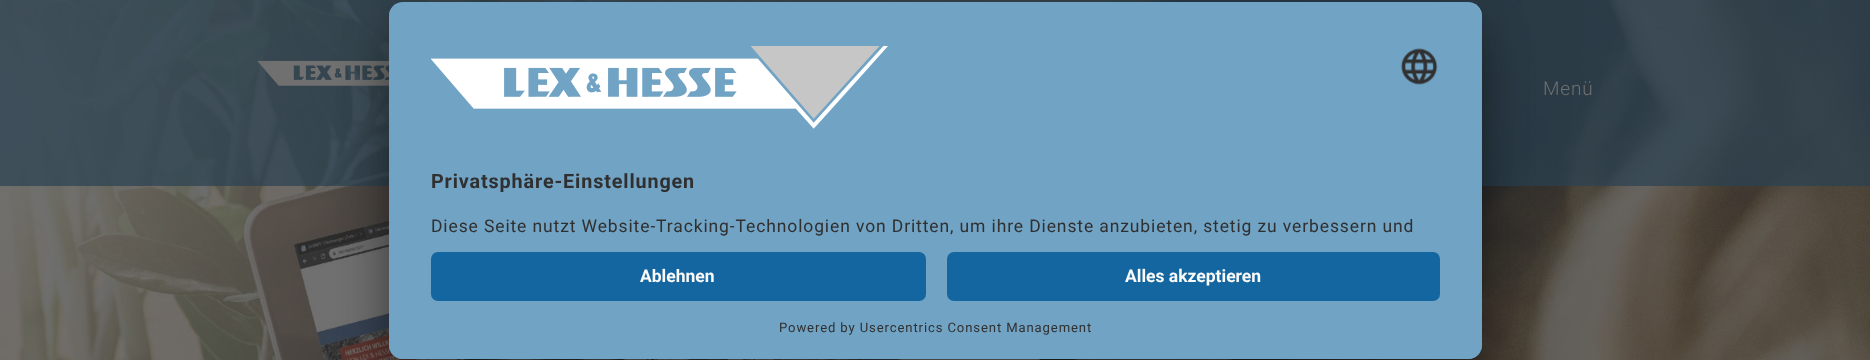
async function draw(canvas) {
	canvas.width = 1870;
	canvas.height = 360;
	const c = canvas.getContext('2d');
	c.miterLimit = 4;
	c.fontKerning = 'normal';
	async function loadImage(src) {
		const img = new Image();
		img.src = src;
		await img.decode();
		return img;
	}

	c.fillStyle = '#fff';
	c.fillRect(0, 0, 1870, 360);
	c.drawImage(await loadImage('img1.png'), 0, 0, 1870, 360);
	c.fillStyle = '#294253b3';
	c.fillRect(0, 0, 1870, 186);
	c.drawImage(await loadImage('img2.png'), 257, 60, 132, 26);
	c.letterSpacing = '0.88px';
	c.font = '300 19px Roboto';
	c.fillStyle = '#707070';
	c.fillText('Menü', 1543, 95);
	c.fillStyle = '#0000004d';
	c.filter = 'blur(24.5px)';
	c.beginPath();
	c.roundRect(389, 37, 1093, 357, 14);
	c.fill();
	c.filter = 'none';
	c.fillStyle = '#00000038';
	c.filter = 'blur(23px)';
	c.beginPath();
	c.roundRect(389, 11, 1093, 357, 14);
	c.fill();
	c.filter = 'none';
	c.fillStyle = '#71a3c5';
	c.beginPath();
	c.roundRect(389, 2, 1093, 357, 14);
	c.fill();
	c.save();
	c.beginPath();
	c.roundRect(389, 2, 1093, 357, 14);
	c.clip();
	c.beginPath();
	c.roundRect(389, 2, 1093, 236, [14, 14, 0, 0]);
	c.clip();
	c.fillRect(389, 4, 1093, 234);
	c.restore();
	c.drawImage(await loadImage('img3.png'), 431, 46, 457, 83);
	c.drawImage(await loadImage('img4.png'), 1401, 48, 37, 37);
	c.font = 'bold 19.75px Roboto';
	c.fillStyle = '#303030';
	c.fillText('Privatsphäre-Einstellungen', 431, 188);
	c.font = '17.5px Roboto';
	c.fillText('Diese Seite nutzt Website-Tracking-Technologien von Dritten, um ihre Dienste anzubieten, stetig zu verbessern und', 431, 232);
	c.fillStyle = '#71a3c5';
	c.beginPath();
	c.roundRect(389, 238, 1093, 121, [0, 0, 14, 14]);
	c.fill();
	c.fillStyle = '#13669f';
	c.beginPath();
	c.roundRect(431, 252, 495, 49, 7);
	c.fill();
	c.letterSpacing = '0px';
	c.font = 'bold 17.5px Roboto';
	c.fillStyle = '#fafafa';
	c.fillText('Ablehnen', 640, 282);
	c.fillStyle = '#13669f';
	c.beginPath();
	c.roundRect(947, 252, 493, 49, 7);
	c.fill();
	c.fillStyle = '#fafafa';
	c.fillText('Alles akzeptieren', 1125, 282);
	c.letterSpacing = '0.88px';
	c.font = '13.1px Roboto';
	c.fillStyle = '#303030';
	c.fillText('Powered by Usercentrics Consent Management', 779, 332);
}

draw(document.querySelector('canvas'));
